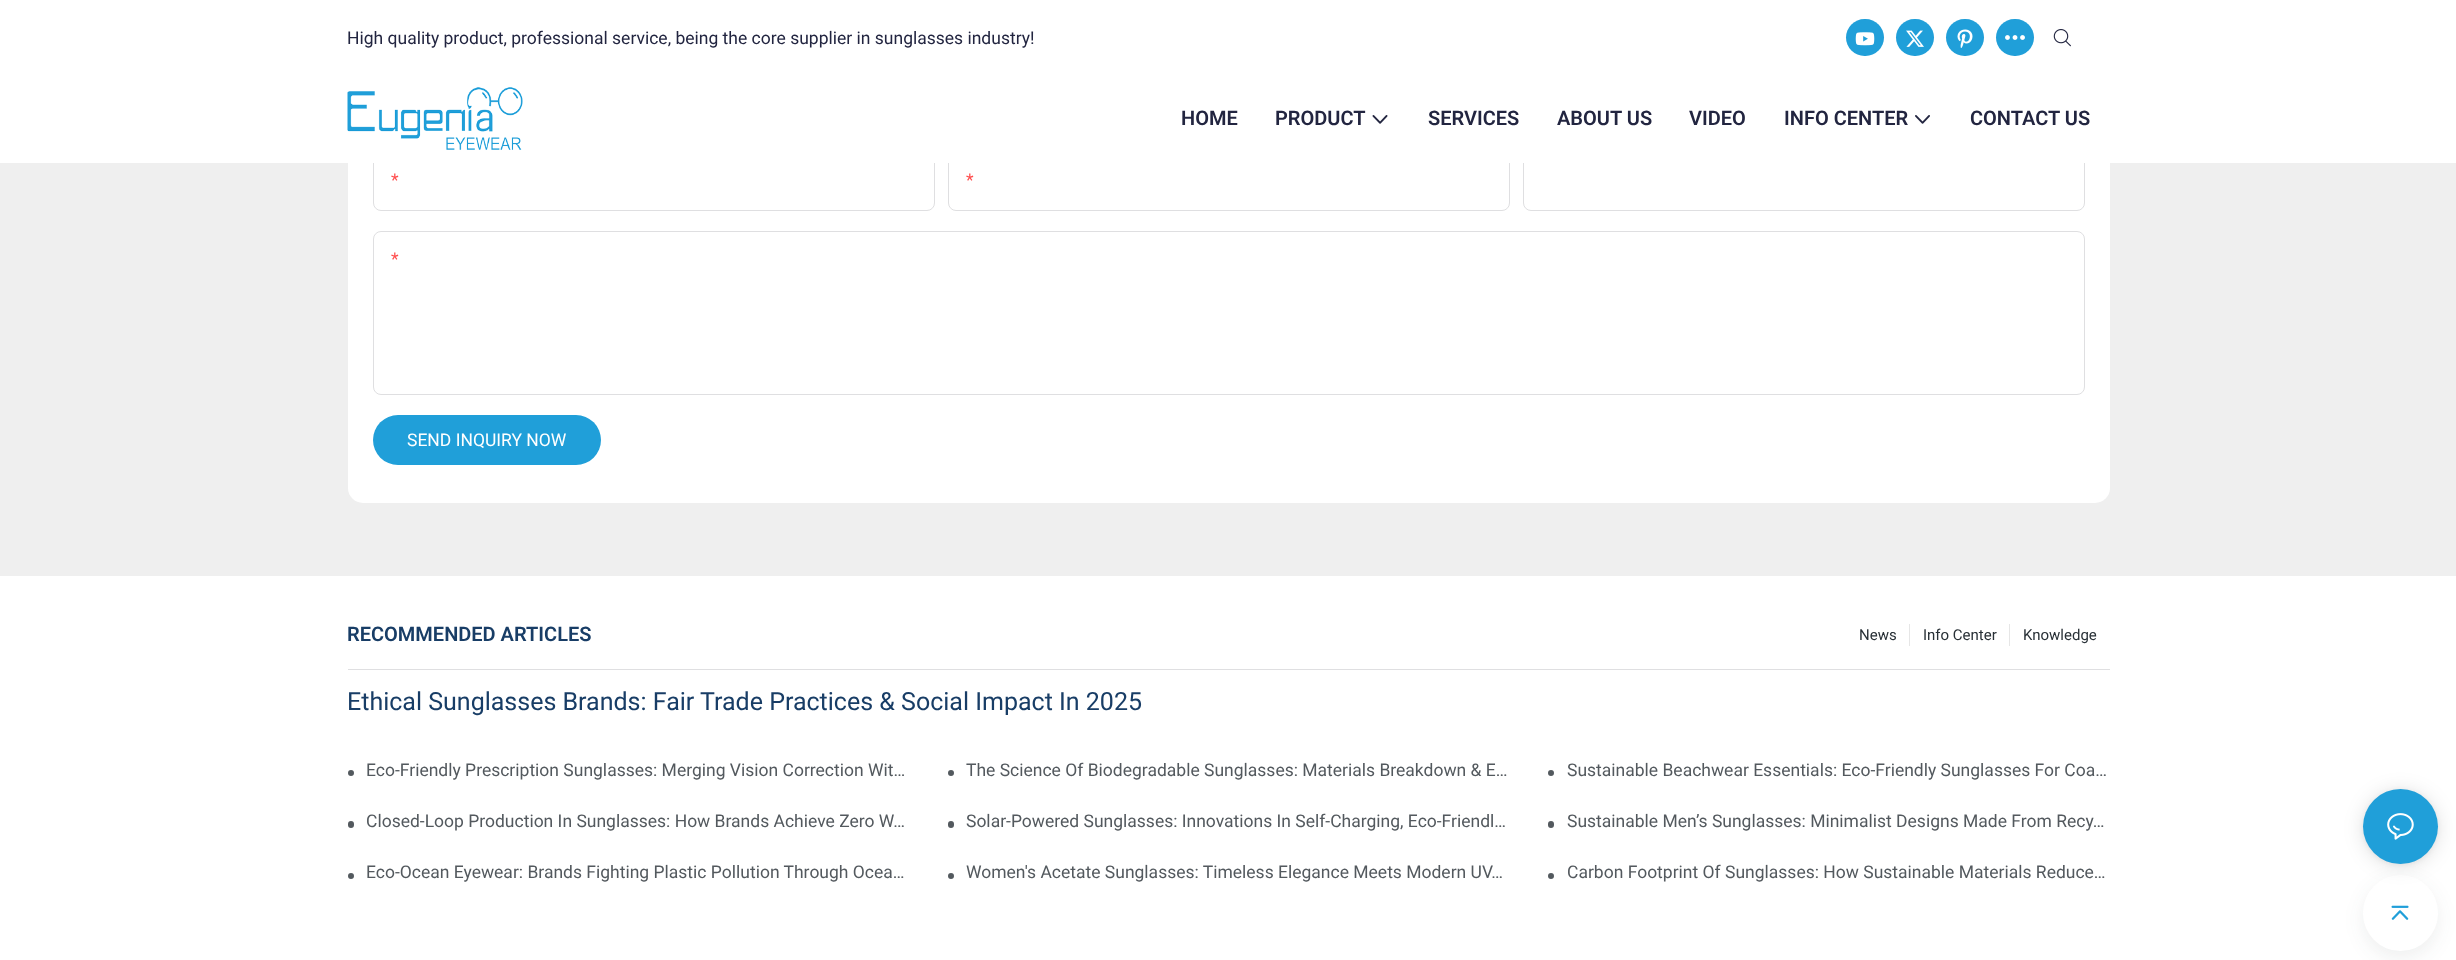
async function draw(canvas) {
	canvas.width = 2456;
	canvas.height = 960;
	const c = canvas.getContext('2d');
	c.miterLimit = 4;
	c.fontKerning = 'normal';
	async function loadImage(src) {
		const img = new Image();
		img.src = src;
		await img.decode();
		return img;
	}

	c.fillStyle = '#fff';
	c.fillRect(0, 0, 2456, 960);
	c.fillStyle = '#efefef';
	c.fillRect(0, 163, 2456, 413);
	c.fillStyle = '#fff';
	c.beginPath();
	c.roundRect(348, 40, 1762, 463, 15);
	c.fill();
	c.beginPath();
	c.roundRect(373.5, 153.5, 561, 57, 7.5);
	c.strokeStyle = '#dfdfe1';
	c.stroke();
	c.beginPath();
	c.roundRect(948.5, 153.5, 561, 57, 7.5);
	c.stroke();
	c.beginPath();
	c.roundRect(1523.5, 153.5, 561, 57, 7.5);
	c.stroke();
	c.fillRect(373, 153, 1712, 10);
	c.font = '17.5px Roboto';
	c.fillStyle = '#222540';
	c.fillText('High quality product, professional service, being the core supplier in sunglasses industry!', 347, 44);
	c.fillStyle = '#209fd9';
	c.beginPath();
	c.roundRect(1846, 19, 38, 37, 18.5);
	c.fill();
	c.drawImage(await loadImage('img1.png'), 1855, 32, 20, 14);
	c.beginPath();
	c.roundRect(1896, 19, 38, 37, 18.5);
	c.fill();
	c.drawImage(await loadImage('img2.png'), 1906, 30, 18, 17);
	c.beginPath();
	c.roundRect(1946, 19, 38, 37, 18.5);
	c.fill();
	c.drawImage(await loadImage('img3.png'), 1957, 29, 16, 19);
	c.beginPath();
	c.roundRect(1996, 19, 38, 37, 18.5);
	c.fill();
	c.drawImage(await loadImage('img4.png'), 2005, 35, 20, 5);
	c.drawImage(await loadImage('img5.png'), 2053, 29, 18, 18);
	c.drawImage(await loadImage('img6.png'), 347, 87, 176, 63);
	c.font = '600 20px Roboto';
	c.fillStyle = '#222540';
	c.fillText('HOME', 1181, 125);
	c.fillText('PRODUCT', 1275, 125);
	c.drawImage(await loadImage('img7.png'), 1372, 115, 16, 9);
	for (const [text, x, y] of [
		['SERVICES', 1428, 125],
		['ABOUT US', 1557, 125],
		['VIDEO', 1689, 125],
		['INFO CENTER', 1784, 125],
	]) {
		c.fillText(text, x, y);
	}
	c.drawImage(await loadImage('img8.png'), 1915, 115, 15, 9);
	c.fillText('CONTACT US', 1970, 125);
	c.font = '17.5px Roboto';
	c.fillStyle = '#ff4d4d';
	c.fillText('*', 391, 186);
	c.fillText('*', 966, 186);
	c.beginPath();
	c.roundRect(373.5, 231.5, 1711, 163, 7.5);
	c.stroke();
	c.fillText('*', 391, 265);
	c.fillStyle = '#209fd9';
	c.beginPath();
	c.roundRect(373, 415, 228, 50, 25);
	c.fill();
	c.fillStyle = '#fff';
	c.fillText('SEND INQUIRY NOW', 407, 446);
	c.fillStyle = '#dfdfe1';
	c.fillRect(348, 669, 1762, 1);
	c.font = '600 20px Roboto';
	c.fillStyle = '#183d66';
	c.fillText('RECOMMENDED ARTICLES', 347, 641);
	c.font = '15px Roboto';
	c.fillStyle = '#283036';
	c.fillText('News', 1859, 640);
	c.fillStyle = '#e6e6e6';
	c.fillRect(1909, 624, 1, 22);
	c.fillStyle = '#283036';
	c.fillText('Info Center', 1923, 640);
	c.fillStyle = '#e6e6e6';
	c.fillRect(2009, 624, 1, 22);
	c.fillStyle = '#283036';
	c.fillText('Knowledge', 2023, 640);
	c.font = '25px Roboto';
	c.fillStyle = '#183d66';
	c.fillText('Ethical Sunglasses Brands: Fair Trade Practices & Social Impact In 2025', 347, 710);
	c.beginPath();
	c.arc(351, 773, 1.5, 0, 2 * Math.PI);
	c.strokeStyle = '#53595e';
	c.lineWidth = 3;
	c.stroke();
	c.font = '17.5px Roboto';
	c.fillStyle = '#53595e';
	c.fillText('Eco-Friendly Prescription Sunglasses: Merging Vision Correction Wit…', 366, 776);
	c.beginPath();
	c.arc(951, 773, 1.5, 0, 2 * Math.PI);
	c.stroke();
	c.fillText('The Science Of Biodegradable Sunglasses: Materials Breakdown & E…', 966, 776);
	c.beginPath();
	c.arc(1551, 773, 1.5, 0, 2 * Math.PI);
	c.stroke();
	c.fillText('Sustainable Beachwear Essentials: Eco-Friendly Sunglasses For Coa…', 1567, 776);
	c.beginPath();
	c.roundRect(349.5, 822.5, 3, 4, 1.5);
	c.stroke();
	c.fillText('Closed-Loop Production In Sunglasses: How Brands Achieve Zero W…', 366, 827);
	c.beginPath();
	c.roundRect(949.5, 822.5, 3, 4, 1.5);
	c.stroke();
	c.fillText('Solar-Powered Sunglasses: Innovations In Self-Charging, Eco-Friendl…', 966, 827);
	c.beginPath();
	c.roundRect(1549.5, 822.5, 3, 4, 1.5);
	c.stroke();
	c.fillText('Sustainable Men’s Sunglasses: Minimalist Designs Made From Recy…', 1567, 827);
	c.beginPath();
	c.arc(351, 876, 1.5, 0, 2 * Math.PI);
	c.stroke();
	c.fillText('Eco-Ocean Eyewear: Brands Fighting Plastic Pollution Through Ocea…', 366, 878);
	c.beginPath();
	c.arc(951, 876, 1.5, 0, 2 * Math.PI);
	c.stroke();
	c.fillText('Women\'s Acetate Sunglasses: Timeless Elegance Meets Modern UV…', 966, 878);
	c.beginPath();
	c.arc(1551, 876, 1.5, 0, 2 * Math.PI);
	c.stroke();
	c.fillText('Carbon Footprint Of Sunglasses: How Sustainable Materials Reduce…', 1567, 878);
	c.fillStyle = '#282f3614';
	c.filter = 'blur(9.5px)';
	c.beginPath();
	c.roundRect(2363, 881, 75, 77, 37.5);
	c.fill();
	c.filter = 'none';
	c.fillStyle = '#fff';
	c.beginPath();
	c.roundRect(2363, 875, 75, 76, 37.5);
	c.fill();
	c.fillStyle = '#0000001f';
	c.filter = 'blur(10px)';
	c.beginPath();
	c.roundRect(2363, 791, 75, 75, 37.5);
	c.fill();
	c.filter = 'none';
	c.fillStyle = '#0000000f';
	c.filter = 'blur(2.5px)';
	c.beginPath();
	c.roundRect(2363, 790, 75, 75, 37.5);
	c.fill();
	c.filter = 'none';
	c.fillStyle = '#209fd9';
	c.beginPath();
	c.arc(2400.5, 826.5, 37.5, 0, 2 * Math.PI);
	c.fill();
	c.drawImage(await loadImage('img9.png'), 2387, 813, 27, 27);
	c.drawImage(await loadImage('img10.png'), 2391, 905, 18, 15);
}

draw(document.querySelector('canvas'));
